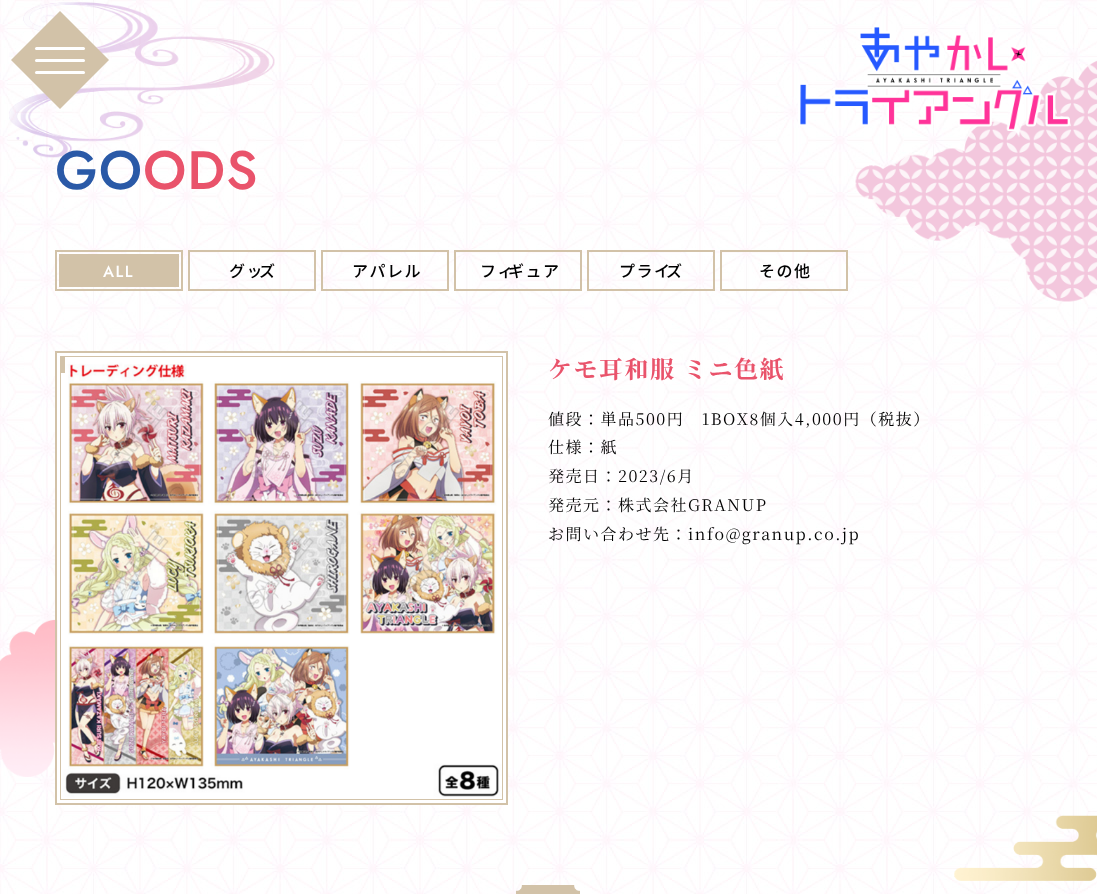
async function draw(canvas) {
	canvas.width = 1097;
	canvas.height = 894;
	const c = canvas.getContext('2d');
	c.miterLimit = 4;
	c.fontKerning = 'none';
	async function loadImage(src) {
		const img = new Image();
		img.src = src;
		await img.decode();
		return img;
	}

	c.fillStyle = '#fff';
	c.fillRect(0, 0, 1097, 894);
	c.drawImage(await loadImage('img1.png'), 0, 0, 1097, 894);
	c.drawImage(await loadImage('img2.png'), 9, 2, 266, 156);
	c.fillStyle = '#d2c2a8';
	c.beginPath();
	c.moveTo(60, 11);
	c.lineTo(109, 60);
	c.lineTo(60, 109);
	c.lineTo(11, 60);
	c.closePath();
	c.fill();
	c.fillStyle = '#fff';
	c.beginPath();
	c.roundRect(35, 47, 50, 3, 1.5);
	c.fill();
	c.beginPath();
	c.roundRect(35, 59, 50, 3, 1.5);
	c.fill();
	c.beginPath();
	c.roundRect(35, 71, 50, 3, 1.5);
	c.fill();
	c.drawImage(await loadImage('img6.png'), 855, 60, 242, 242);
	c.drawImage(await loadImage('img3.png'), 798, 27, 272, 104);
	c.letterSpacing = '1px';
	c.font = '500 54px Jost';
	c.fillStyle = '#2a59a7';
	c.fillText('GO', 55, 189);
	c.fillStyle = '#e9536b';
	c.fillText('ODS', 143, 189);
	c.strokeStyle = '#d2c2a8';
	c.lineWidth = 2;
	c.strokeRect(56, 251, 126, 39);
	c.fillStyle = '#d2c2a8';
	c.fillRect(59, 254, 120, 33);
	c.letterSpacing = '1.5px';
	c.font = '500 16px Jost';
	c.fillStyle = '#fff';
	c.fillText('ALL', 103, 277);
	c.strokeRect(189, 251, 126, 39);
	c.font = '500 16px Noto Sans JP';
	c.fillStyle = '#000';
	c.fillText('グッ', 229, 277);
	c.fillText('ズ', 259, 277);
	c.strokeRect(322, 251, 126, 39);
	c.fillText('アパレル', 352, 277);
	c.strokeRect(455, 251, 126, 39);
	c.fillText('フィ', 480, 277);
	c.fillText('ギュア', 508, 277);
	c.strokeRect(588, 251, 126, 39);
	c.fillText('プライ', 619, 277);
	c.fillText('ズ', 666, 277);
	c.strokeRect(721, 251, 126, 39);
	c.fillText('その他', 759, 277);
	c.drawImage(await loadImage('img7.png'), 0, 620, 58, 157);
	c.strokeRect(56, 352, 451, 452);
	c.drawImage(await loadImage('img4.png'), 57, 353, 449, 450);
	c.lineWidth = 1;
	c.strokeRect(60.5, 356.5, 442, 443);
	c.fillStyle = '#d2c2a8';
	c.fillRect(61, 357, 4, 16);
	c.font = 'bold 24px Noto Serif JP';
	c.fillStyle = '#e9536b';
	c.fillText('ケモ耳和服 ミニ色紙', 548, 378);
	c.font = '16px Noto Serif JP';
	c.fillStyle = '#000';
	for (const [text, x, y] of [
		['値段：単品500円　1BOX8個入4,000円（税抜）', 548, 425],
		['仕様：紙', 548, 453],
		['発売日：2023/6月', 548, 482],
		['発売元：株式会社GRANUP', 548, 511],
		['お問い合わせ先：info@granup.co.jp', 548, 540],
	]) {
		c.fillText(text, x, y);
	}
	c.drawImage(await loadImage('img5.png'), 516, 885, 64, 9);
	c.drawImage(await loadImage('img8.png'), 954, 815, 143, 66);
}

draw(document.querySelector('canvas'));
